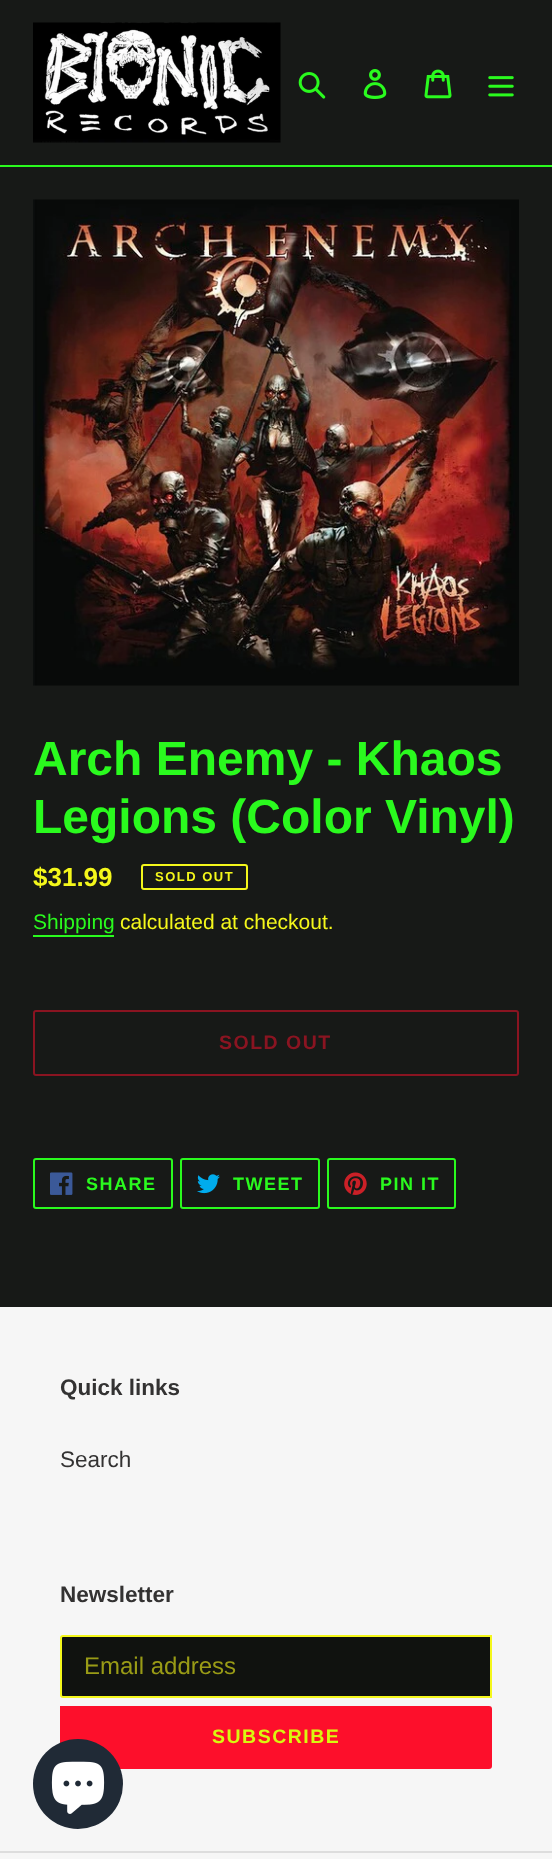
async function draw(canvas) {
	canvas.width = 552;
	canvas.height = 1859;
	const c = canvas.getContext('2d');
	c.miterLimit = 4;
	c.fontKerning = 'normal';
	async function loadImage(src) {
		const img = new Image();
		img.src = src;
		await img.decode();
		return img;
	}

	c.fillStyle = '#171917';
	c.fillRect(0, 0, 552, 1859);
	c.fillStyle = '#2afa1e';
	c.fillRect(0, 165, 552, 2);
	c.drawImage(await loadImage('img1.png'), 33, 22, 248, 121);
	c.drawImage(await loadImage('img2.png'), 298, 72, 28, 27);
	c.drawImage(await loadImage('img3.png'), 363, 69, 24, 30);
	c.drawImage(await loadImage('img4.png'), 424, 69, 28, 30);
	c.drawImage(await loadImage('img5.png'), 488, 76, 26, 21);
	c.drawImage(await loadImage('img6.png'), 33, 199, 486, 487);
	c.font = 'bold 48px Liberation Sans';
	c.fillText('Arch Enemy - Khaos', 33, 775);
	c.fillText('Legions (Color Vinyl)', 33, 833);
	c.font = 'bold 26px Liberation Sans';
	c.fillStyle = '#f4f71b';
	c.fillText('$31.99', 33, 886);
	c.beginPath();
	c.roundRect(142, 865, 105, 24, 2);
	c.strokeStyle = '#f4f71b';
	c.lineWidth = 2;
	c.stroke();
	c.letterSpacing = '1.5px';
	c.font = 'bold 13px Liberation Sans';
	c.fillText('SOLD OUT', 155, 881);
	c.letterSpacing = '0px';
	c.font = '21px Liberation Sans';
	c.fillStyle = '#2afa1e';
	c.fillText('Shipping', 33, 929);
	c.fillRect(33, 935, 81, 2);
	c.fillStyle = '#f4f71b';
	c.fillText('calculated at checkout.', 120, 929);
	c.beginPath();
	c.roundRect(34, 1011, 484, 64, 2);
	c.strokeStyle = '#8a1421';
	c.stroke();
	c.letterSpacing = '1.5px';
	c.font = 'bold 19.5px Liberation Sans';
	c.fillStyle = '#8a1421';
	c.fillText('SOLD OUT', 219, 1049);
	c.beginPath();
	c.roundRect(34, 1159, 138, 49, 2);
	c.strokeStyle = '#2afa1e';
	c.stroke();
	c.drawImage(await loadImage('img7.png'), 50, 1172, 23, 23);
	c.font = 'bold 18px Liberation Sans';
	c.fillStyle = '#2afa1e';
	c.fillText('SHARE', 86, 1190);
	c.beginPath();
	c.roundRect(181, 1159, 138, 49, 2);
	c.stroke();
	c.drawImage(await loadImage('img8.png'), 197, 1174, 23, 20);
	c.fillText('TWEET', 233, 1190);
	c.beginPath();
	c.roundRect(328, 1159, 127, 49, 2);
	c.stroke();
	c.drawImage(await loadImage('img9.png'), 344, 1172, 23, 23);
	c.fillText('PIN IT', 380, 1190);
	c.fillStyle = '#f6f6f6';
	c.fillRect(0, 1307, 552, 552);
	c.letterSpacing = '0px';
	c.font = 'bold 22.5px Liberation Sans';
	c.fillStyle = '#333232';
	c.fillText('Quick links', 60, 1395);
	c.font = '22.5px Liberation Sans';
	c.fillText('Search', 60, 1467);
	c.font = 'bold 22.5px Liberation Sans';
	c.fillText('Newsletter', 60, 1602);
	c.fillStyle = '#10120f';
	c.beginPath();
	c.roundRect(61, 1636, 430, 61, [2, 0, 0, 2]);
	c.fill();
	c.strokeStyle = '#f4f71b';
	c.stroke();
	c.font = '24px Liberation Sans';
	c.fillStyle = '#999b16';
	c.fillText('Email address', 84, 1674);
	c.fillStyle = '#fd0f2b';
	c.beginPath();
	c.roundRect(60, 1706, 432, 63, [0, 3, 3, 0]);
	c.fill();
	c.letterSpacing = '1.5px';
	c.font = 'bold 19.5px Liberation Sans';
	c.fillStyle = '#d9f710';
	c.fillText('SUBSCRIBE', 212, 1743);
	c.fillStyle = '#ddd';
	c.fillRect(0, 1851, 552, 2);
	c.fillStyle = '#202a36';
	c.beginPath();
	c.arc(78, 1784, 45, 0, 2 * Math.PI);
	c.fill();
	c.drawImage(await loadImage('img10.png'), 51, 1761, 54, 53);
}

draw(document.querySelector('canvas'));
